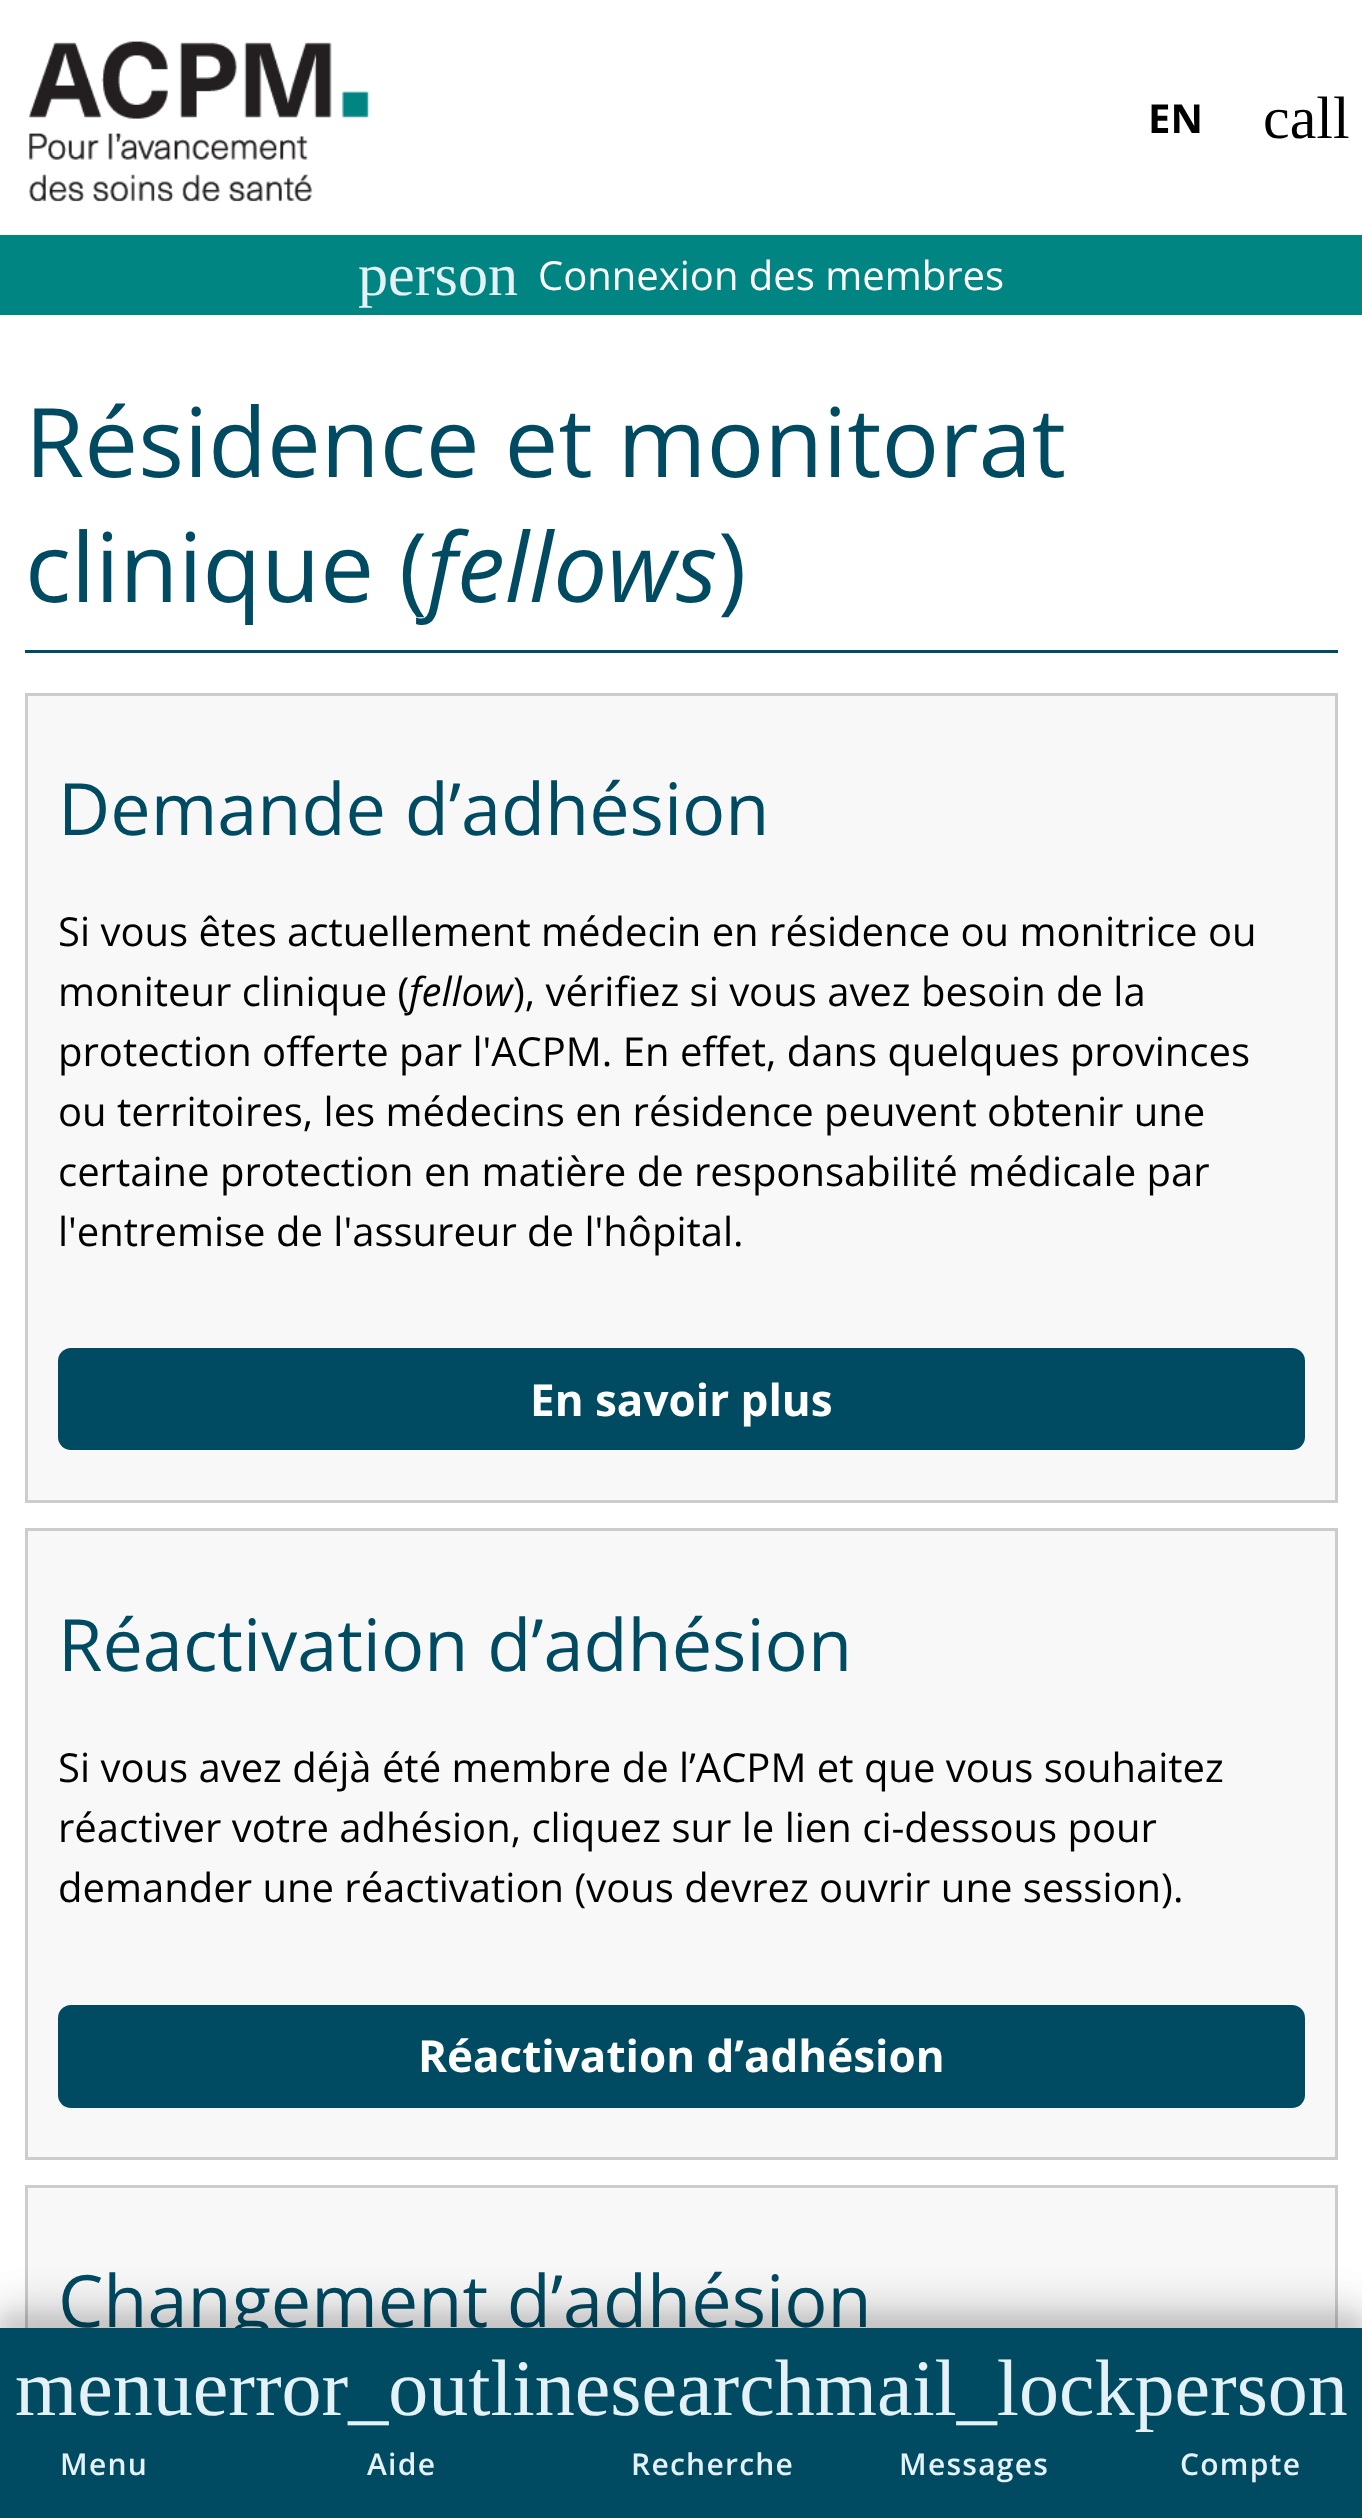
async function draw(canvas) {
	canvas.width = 1362;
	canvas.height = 2518;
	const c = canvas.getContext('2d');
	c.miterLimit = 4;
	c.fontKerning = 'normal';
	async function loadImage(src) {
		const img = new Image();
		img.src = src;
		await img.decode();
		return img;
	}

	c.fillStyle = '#fff';
	c.fillRect(0, 0, 1362, 2518);
	c.drawImage(await loadImage('img1.png'), 29, 41, 340, 161);
	c.font = 'bold 40px Open Sans';
	c.fillStyle = '#000';
	c.fillText('EN', 1148, 133);
	c.font = '60px Liberation Serif';
	c.fillText('call', 1263, 138);
	c.fillStyle = '#008582';
	c.fillRect(0, 235, 1362, 80);
	c.fillStyle = '#e4f2f7';
	c.fillText('person', 358, 295);
	c.font = '40px Open Sans';
	c.fillStyle = '#fff';
	c.fillText('Connexion des membres', 538, 290);
	c.fillStyle = '#004b62';
	c.fillRect(25, 650, 1313, 3);
	c.font = '96px Open Sans';
	c.fillText('Résidence et monitorat', 25, 477);
	c.fillText('clinique (', 25, 602);
	c.font = 'italic 96px Open Sans';
	c.fillText('fellows', 427, 602);
	c.font = '96px Open Sans';
	c.fillText(')', 718, 602);
	c.fillStyle = '#f7f8f7';
	c.beginPath();
	c.rect(26.5, 694.5, 1310, 807);
	c.fill();
	c.strokeStyle = '#ccc';
	c.lineWidth = 3;
	c.stroke();
	c.font = '72px Open Sans';
	c.fillStyle = '#004b62';
	c.fillText('Demande d’adhésion', 58, 835);
	c.font = '40px Open Sans';
	c.fillStyle = '#000';
	c.fillText('Si vous êtes actuellement médecin en résidence ou monitrice ou', 58, 946);
	c.fillText('moniteur clinique (', 58, 1006);
	c.font = 'italic 40px Open Sans';
	c.fillText('fellow', 409, 1006);
	c.font = '40px Open Sans';
	for (const [text, x, y] of [
		['), vérifiez si vous avez besoin de la', 513, 1006],
		['protection offerte par l\'ACPM. En effet, dans quelques provinces', 58, 1066],
		['ou territoires, les médecins en résidence peuvent obtenir une', 58, 1126],
		['certaine protection en matière de responsabilité médicale par', 58, 1186],
		['l\'entremise de l\'assureur de l\'hôpital.', 58, 1246],
	]) {
		c.fillText(text, x, y);
	}
	c.fillStyle = '#004b62';
	c.beginPath();
	c.roundRect(58, 1348, 1247, 102, 13);
	c.fill();
	c.font = 'bold 44px Open Sans';
	c.fillStyle = '#fff';
	c.fillText('En savoir plus', 530, 1416);
	c.fillStyle = '#f7f8f7';
	c.beginPath();
	c.rect(26.5, 1529.5, 1310, 629);
	c.fill();
	c.stroke();
	c.font = '72px Open Sans';
	c.fillStyle = '#004b62';
	c.fillText('Réactivation d’adhésion', 58, 1671);
	c.font = '40px Open Sans';
	c.fillStyle = '#000';
	for (const [text, x, y] of [
		['Si vous avez déjà été membre de l’ACPM et que vous souhaitez', 58, 1782],
		['réactiver votre adhésion, cliquez sur le lien ci-dessous pour', 58, 1842],
		['demander une réactivation (vous devrez ouvrir une session).', 58, 1902],
	]) {
		c.fillText(text, x, y);
	}
	c.fillStyle = '#004b62';
	c.beginPath();
	c.roundRect(58, 2005, 1247, 103, 13);
	c.fill();
	c.font = 'bold 44px Open Sans';
	c.fillStyle = '#fff';
	c.fillText('Réactivation d’adhésion', 418, 2072);
	c.fillStyle = '#f7f8f7';
	c.fillRect(28, 2188, 1307, 140);
	c.strokeRect(26.5, 2186.5, 1310, 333);
	c.font = '72px Open Sans';
	c.fillStyle = '#004b62';
	c.fillText('Changement d’adhésion', 58, 2327);
	c.fillStyle = '#00000014';
	c.filter = 'blur(7.5px)';
	c.beginPath();
	c.rect(0, 2313, 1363, 192);
	c.fill();
	c.filter = 'none';
	c.filter = 'blur(17.5px)';
	c.beginPath();
	c.rect(-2, 2300, 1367, 198);
	c.fill();
	c.filter = 'none';
	c.filter = 'blur(22.5px)';
	c.beginPath();
	c.rect(-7, 2310, 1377, 208);
	c.fill();
	c.filter = 'none';
	c.fillStyle = '#004b62';
	c.fillRect(0, 2328, 1362, 190);
	c.font = '80px Liberation Serif';
	c.fillStyle = '#e4f2f7';
	c.fillText('menuerror_outlinesearchmail_lockperson', 15, 2415);
	c.letterSpacing = '1.25px';
	c.font = '600 30px Open Sans';
	for (const [text, x, y] of [
		['Menu', 60, 2475],
		['Aide', 367, 2475],
		['Recherche', 631, 2475],
		['Messages', 899, 2475],
		['Compte', 1180, 2475],
	]) {
		c.fillText(text, x, y);
	}
}

draw(document.querySelector('canvas'));
